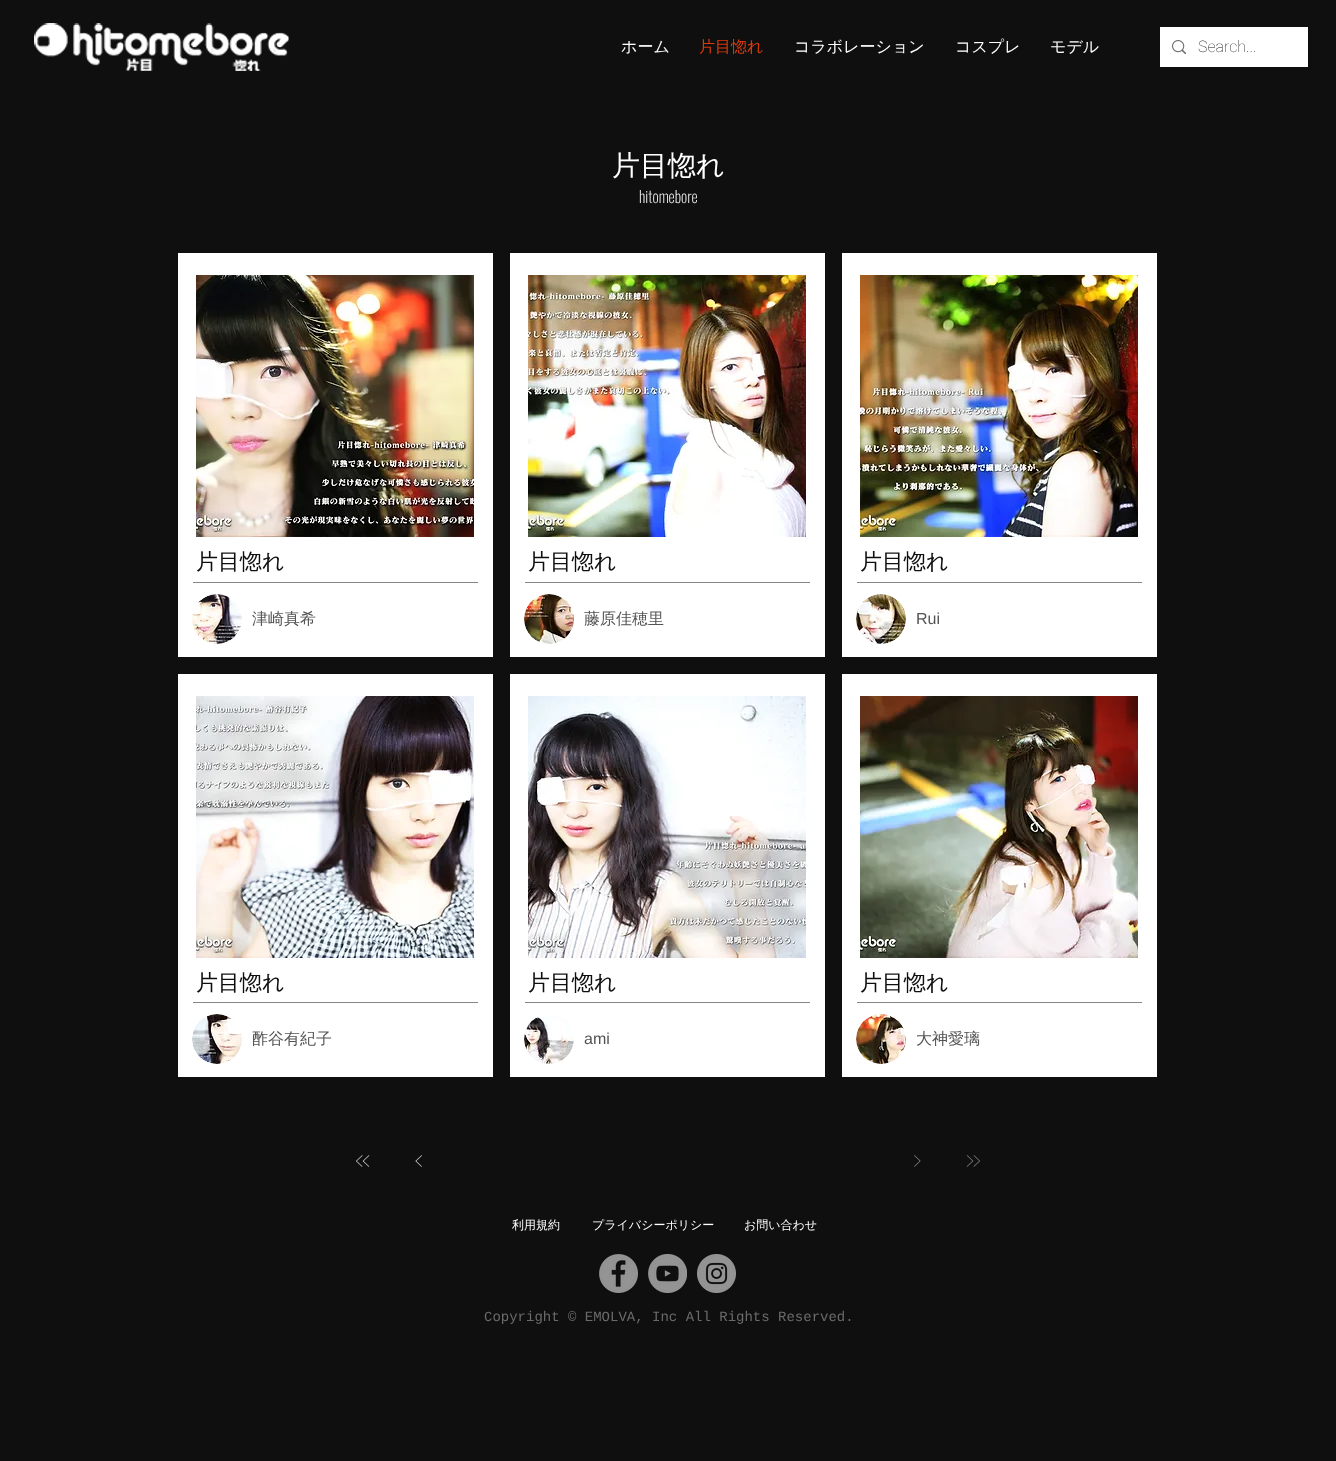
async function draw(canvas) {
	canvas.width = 1336;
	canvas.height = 1461;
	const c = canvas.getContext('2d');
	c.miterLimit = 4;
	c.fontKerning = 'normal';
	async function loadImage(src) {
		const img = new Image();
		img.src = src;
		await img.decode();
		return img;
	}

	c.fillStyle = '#0f0f0f';
	c.fillRect(0, 0, 1336, 1461);
	c.drawImage(await loadImage('img1.png'), 34, 23, 255, 48);
	c.font = '500 16px WenQuanYi Zen Hei';
	c.fillStyle = '#fff';
	c.fillText('ホーム', 621, 52);
	c.fillStyle = '#db3b0b';
	c.fillText('片目惚れ', 699, 52);
	c.fillStyle = '#fff';
	for (const [text, x, y] of [
		['コラボレーション', 794, 52],
		['コスプレ', 955, 52],
		['モデル', 1050, 52],
	]) {
		c.fillText(text, x, y);
	}
	c.fillRect(1160, 27, 148, 40);
	c.drawImage(await loadImage('img2.png'), 1172, 40, 14, 14);
	c.font = '100 16px Roboto';
	c.fillStyle = '#0f0f0f';
	c.fillText('Search...', 1198, 52);
	c.font = '500 28px WenQuanYi Zen Hei';
	c.fillStyle = '#fff';
	c.fillText('片目惚れ', 612, 175);
	c.font = '200 16px Oswald';
	c.fillText('hitomebore', 639, 203);
	c.fillRect(178, 253, 315, 404);
	c.drawImage(await loadImage('img3.png'), 196, 275, 278, 262);
	c.font = '500 22px WenQuanYi Zen Hei';
	c.fillStyle = '#0f0f0f';
	c.fillText('片目惚れ', 196, 569);
	c.fillStyle = '#858585';
	c.fillRect(193, 582, 285, 1);
	c.drawImage(await loadImage('img4.png'), 192, 594, 50, 50);
	c.font = '500 16px WenQuanYi Zen Hei';
	c.fillStyle = '#545454';
	c.fillText('津崎真希', 252, 624);
	c.fillStyle = '#fff';
	c.fillRect(178, 674, 315, 403);
	c.drawImage(await loadImage('img5.png'), 196, 696, 278, 262);
	c.font = '500 22px WenQuanYi Zen Hei';
	c.fillStyle = '#0f0f0f';
	c.fillText('片目惚れ', 196, 990);
	c.fillStyle = '#858585';
	c.fillRect(193, 1002, 285, 1);
	c.drawImage(await loadImage('img6.png'), 192, 1014, 50, 50);
	c.font = '500 16px WenQuanYi Zen Hei';
	c.fillStyle = '#545454';
	c.fillText('酢谷有紀子', 252, 1044);
	c.fillStyle = '#fff';
	c.fillRect(510, 253, 315, 404);
	c.drawImage(await loadImage('img7.png'), 528, 275, 278, 262);
	c.font = '500 22px WenQuanYi Zen Hei';
	c.fillStyle = '#0f0f0f';
	c.fillText('片目惚れ', 528, 569);
	c.fillStyle = '#858585';
	c.fillRect(525, 582, 285, 1);
	c.drawImage(await loadImage('img8.png'), 524, 594, 50, 50);
	c.font = '500 16px WenQuanYi Zen Hei';
	c.fillStyle = '#545454';
	c.fillText('藤原佳穂里', 584, 624);
	c.fillStyle = '#fff';
	c.fillRect(510, 674, 315, 403);
	c.drawImage(await loadImage('img9.png'), 528, 696, 278, 262);
	c.font = '500 22px WenQuanYi Zen Hei';
	c.fillStyle = '#0f0f0f';
	c.fillText('片目惚れ', 528, 990);
	c.fillStyle = '#858585';
	c.fillRect(525, 1002, 285, 1);
	c.drawImage(await loadImage('img10.png'), 524, 1015, 50, 49);
	c.font = '16px Liberation Sans';
	c.fillStyle = '#545454';
	c.fillText('ami', 584, 1044);
	c.fillStyle = '#fff';
	c.fillRect(842, 253, 315, 404);
	c.drawImage(await loadImage('img11.png'), 860, 275, 278, 262);
	c.font = '500 22px WenQuanYi Zen Hei';
	c.fillStyle = '#0f0f0f';
	c.fillText('片目惚れ', 860, 569);
	c.fillStyle = '#858585';
	c.fillRect(857, 582, 285, 1);
	c.drawImage(await loadImage('img12.png'), 856, 594, 50, 50);
	c.font = '16px Liberation Sans';
	c.fillStyle = '#545454';
	c.fillText('Rui', 916, 624);
	c.fillStyle = '#fff';
	c.fillRect(842, 674, 315, 403);
	c.drawImage(await loadImage('img13.png'), 860, 696, 278, 262);
	c.font = '500 22px WenQuanYi Zen Hei';
	c.fillStyle = '#0f0f0f';
	c.fillText('片目惚れ', 860, 990);
	c.fillStyle = '#858585';
	c.fillRect(857, 1002, 285, 1);
	c.drawImage(await loadImage('img14.png'), 856, 1014, 50, 50);
	c.font = '500 16px WenQuanYi Zen Hei';
	c.fillStyle = '#545454';
	c.fillText('大神愛璃', 916, 1044);
	c.drawImage(await loadImage('img15.png'), 356, 1155, 14, 12);
	c.drawImage(await loadImage('img16.png'), 415, 1155, 7, 12);
	c.drawImage(await loadImage('img17.png'), 914, 1155, 7, 12);
	c.drawImage(await loadImage('img18.png'), 966, 1155, 14, 12);
	c.font = '500 12px WenQuanYi Zen Hei';
	c.fillStyle = '#fff';
	for (const [text, x, y] of [
		['利用規約', 512, 1229],
		['プライバシーポリシー', 592, 1229],
		['お問い合わせ', 744, 1229],
	]) {
		c.fillText(text, x, y);
	}
	c.drawImage(await loadImage('img19.png'), 599, 1254, 39, 39);
	c.drawImage(await loadImage('img20.png'), 648, 1254, 39, 39);
	c.drawImage(await loadImage('img21.png'), 697, 1254, 39, 39);
	c.font = '14px Liberation Mono';
	c.fillStyle = '#6b6b6b';
	c.fillText('Copyright © EMOLVA, Inc All Rights Reserved.', 484, 1321);
}

draw(document.querySelector('canvas'));
